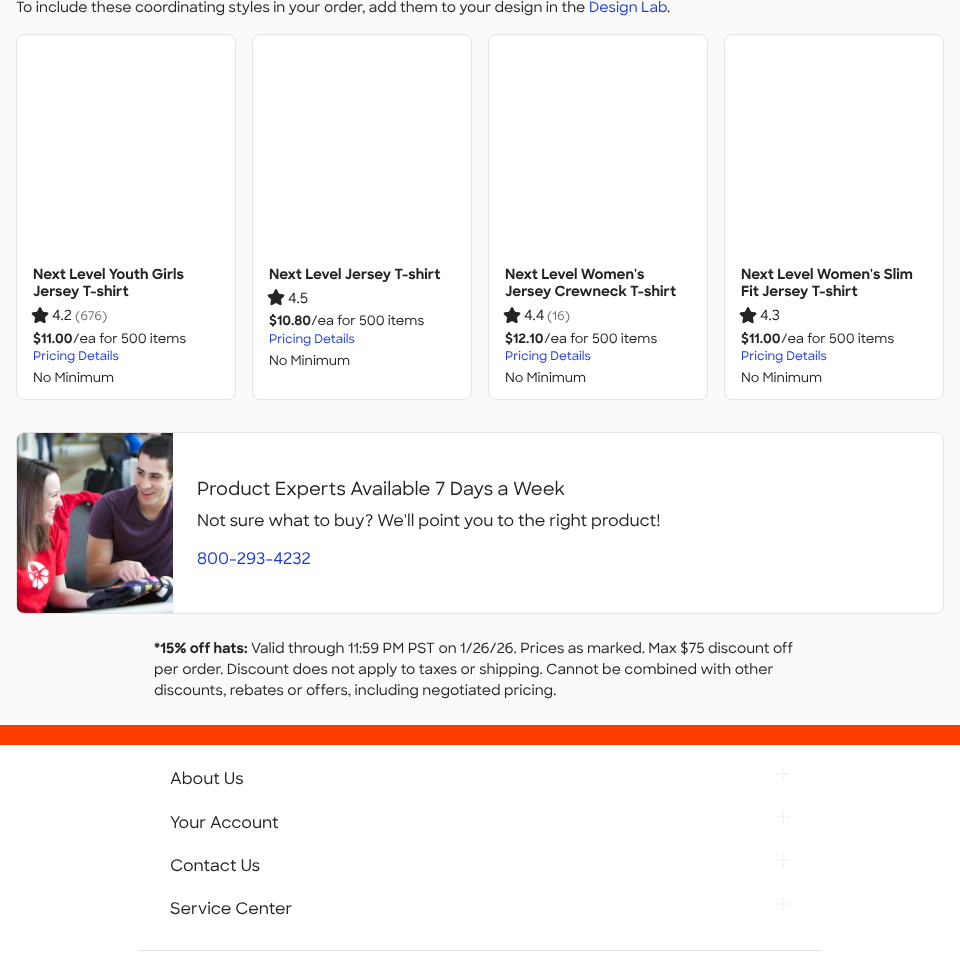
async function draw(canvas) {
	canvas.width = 960;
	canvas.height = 973;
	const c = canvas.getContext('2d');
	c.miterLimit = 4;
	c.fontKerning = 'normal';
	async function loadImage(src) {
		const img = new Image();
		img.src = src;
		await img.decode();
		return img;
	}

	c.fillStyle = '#fafafa';
	c.fillRect(0, 0, 960, 973);
	c.font = '500 14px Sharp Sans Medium';
	c.fillStyle = '#232323';
	c.fillText('To include these coordinating styles in your order, add them to your design in the', 16, 12);
	c.fillStyle = '#1e39d2';
	c.fillText('Design Lab', 589, 12);
	c.fillStyle = '#232323';
	c.fillText('.', 667, 12);
	c.fillStyle = '#fff';
	c.beginPath();
	c.roundRect(16.5, 34.5, 219, 365, 7.5);
	c.fill();
	c.strokeStyle = '#e3e3e3';
	c.stroke();
	c.font = 'bold 14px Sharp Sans';
	c.fillStyle = '#232323';
	c.fillText('Next Level Youth Girls', 33, 279);
	c.fillText('Jersey T-shirt', 33, 296);
	c.drawImage(await loadImage('img1.png'), 31, 307, 18, 17);
	c.font = '500 14px Sharp Sans Medium';
	c.fillText('4.2', 52, 320);
	c.font = '500 12px Sharp Sans Medium';
	c.fillStyle = '#6e6e6e';
	c.fillText('(676)', 75, 320);
	c.font = 'bold 13px Sharp Sans';
	c.fillStyle = '#232323';
	c.fillText('$11.00', 33, 343);
	c.font = '500 13px Sharp Sans Medium';
	c.fillText('/ea for 500 items', 73, 343);
	c.font = '500 12px Sharp Sans Medium';
	c.fillStyle = '#1e39d2';
	c.fillText('Pricing Details', 33, 360);
	c.font = '500 13px Sharp Sans Medium';
	c.fillStyle = '#232323';
	c.fillText('No Minimum', 33, 382);
	c.fillStyle = '#fff';
	c.beginPath();
	c.roundRect(252.5, 34.5, 219, 365, 7.5);
	c.fill();
	c.stroke();
	c.font = 'bold 14px Sharp Sans';
	c.fillStyle = '#232323';
	c.fillText('Next Level Jersey T-shirt', 269, 279);
	c.drawImage(await loadImage('img1.png'), 267, 289, 18, 17);
	c.font = '500 14px Sharp Sans Medium';
	c.fillText('4.5', 288, 303);
	c.font = 'bold 13px Sharp Sans';
	c.fillText('$10.80', 269, 325);
	c.font = '500 13px Sharp Sans Medium';
	c.fillText('/ea for 500 items', 311, 325);
	c.font = '500 12px Sharp Sans Medium';
	c.fillStyle = '#1e39d2';
	c.fillText('Pricing Details', 269, 343);
	c.font = '500 13px Sharp Sans Medium';
	c.fillStyle = '#232323';
	c.fillText('No Minimum', 269, 365);
	c.fillStyle = '#fff';
	c.beginPath();
	c.roundRect(488.5, 34.5, 219, 365, 7.5);
	c.fill();
	c.stroke();
	c.font = 'bold 14px Sharp Sans';
	c.fillStyle = '#232323';
	c.fillText('Next Level Women\'s', 505, 279);
	c.fillText('Jersey Crewneck T-shirt', 505, 296);
	c.drawImage(await loadImage('img1.png'), 503, 307, 18, 17);
	c.font = '500 14px Sharp Sans Medium';
	c.fillText('4.4', 524, 320);
	c.font = '500 12px Sharp Sans Medium';
	c.fillStyle = '#6e6e6e';
	c.fillText('(16)', 547, 320);
	c.font = 'bold 13px Sharp Sans';
	c.fillStyle = '#232323';
	c.fillText('$12.10', 505, 343);
	c.font = '500 13px Sharp Sans Medium';
	c.fillText('/ea for 500 items', 544, 343);
	c.font = '500 12px Sharp Sans Medium';
	c.fillStyle = '#1e39d2';
	c.fillText('Pricing Details', 505, 360);
	c.font = '500 13px Sharp Sans Medium';
	c.fillStyle = '#232323';
	c.fillText('No Minimum', 505, 382);
	c.fillStyle = '#fff';
	c.beginPath();
	c.roundRect(724.5, 34.5, 219, 365, 7.5);
	c.fill();
	c.stroke();
	c.font = 'bold 14px Sharp Sans';
	c.fillStyle = '#232323';
	c.fillText('Next Level Women\'s Slim', 741, 279);
	c.fillText('Fit Jersey T-shirt', 741, 296);
	c.drawImage(await loadImage('img1.png'), 739, 307, 18, 17);
	c.font = '500 14px Sharp Sans Medium';
	c.fillText('4.3', 760, 320);
	c.font = 'bold 13px Sharp Sans';
	c.fillText('$11.00', 741, 343);
	c.font = '500 13px Sharp Sans Medium';
	c.fillText('/ea for 500 items', 781, 343);
	c.font = '500 12px Sharp Sans Medium';
	c.fillStyle = '#1e39d2';
	c.fillText('Pricing Details', 741, 360);
	c.font = '500 13px Sharp Sans Medium';
	c.fillStyle = '#232323';
	c.fillText('No Minimum', 741, 382);
	c.fillStyle = '#fff';
	c.beginPath();
	c.roundRect(16.5, 432.5, 927, 181, 7.5);
	c.fill();
	c.stroke();
	c.drawImage(await loadImage('img2.png'), 17, 433, 156, 180);
	c.font = '500 18px Sharp Sans Medium';
	c.fillStyle = '#232323';
	c.fillText('Product Experts Available 7 Days a Week', 197, 495);
	c.font = '500 16px Sharp Sans Medium';
	c.fillText('Not sure what to buy? We\'ll point you to the right product!', 197, 526);
	c.fillStyle = '#1e39d2';
	c.fillText('800-293-4232', 197, 564);
	c.font = 'bold 14px Sharp Sans';
	c.fillStyle = '#232323';
	c.fillText('*15% off hats:', 154, 653);
	c.font = '500 14px Sharp Sans Medium';
	for (const [text, x, y] of [
		['Valid through 11:59 PM PST on 1/26/26. Prices as marked. Max $75 discount off', 251, 653],
		['per order. Discount does not apply to taxes or shipping. Cannot be combined with other', 154, 674],
		['discounts, rebates or offers, including negotiated pricing.', 154, 695],
	]) {
		c.fillText(text, x, y);
	}
	c.fillStyle = '#fa3c00';
	c.fillRect(0, 725, 960, 20);
	c.fillStyle = '#fff';
	c.fillRect(0, 745, 960, 228);
	c.font = '500 16px Sharp Sans Medium';
	c.fillStyle = '#232323';
	c.fillText('About Us', 170, 784);
	c.fillStyle = '#f5f5f5';
	c.fillRect(782, 767, 2, 14);
	c.fillRect(776, 773, 14, 2);
	c.fillStyle = '#232323';
	c.fillText('Your Account', 170, 828);
	c.fillStyle = '#f5f5f5';
	c.fillRect(782, 810, 2, 14);
	c.fillRect(776, 816, 14, 2);
	c.fillStyle = '#232323';
	c.fillText('Contact Us', 170, 871);
	c.fillStyle = '#f5f5f5';
	c.fillRect(782, 854, 2, 14);
	c.fillRect(776, 859, 14, 2);
	c.fillStyle = '#232323';
	c.fillText('Service Center', 170, 914);
	for (const [x, y, w, h, color] of [
		[782, 897, 2, 14, '#f5f5f5'],
		[776, 903, 14, 2, '#f5f5f5'],
		[138, 950, 684, 1, '#e3e3e3'],
	]) {
		c.fillStyle = color;
		c.fillRect(x, y, w, h);
	}
}

draw(document.querySelector('canvas'));
